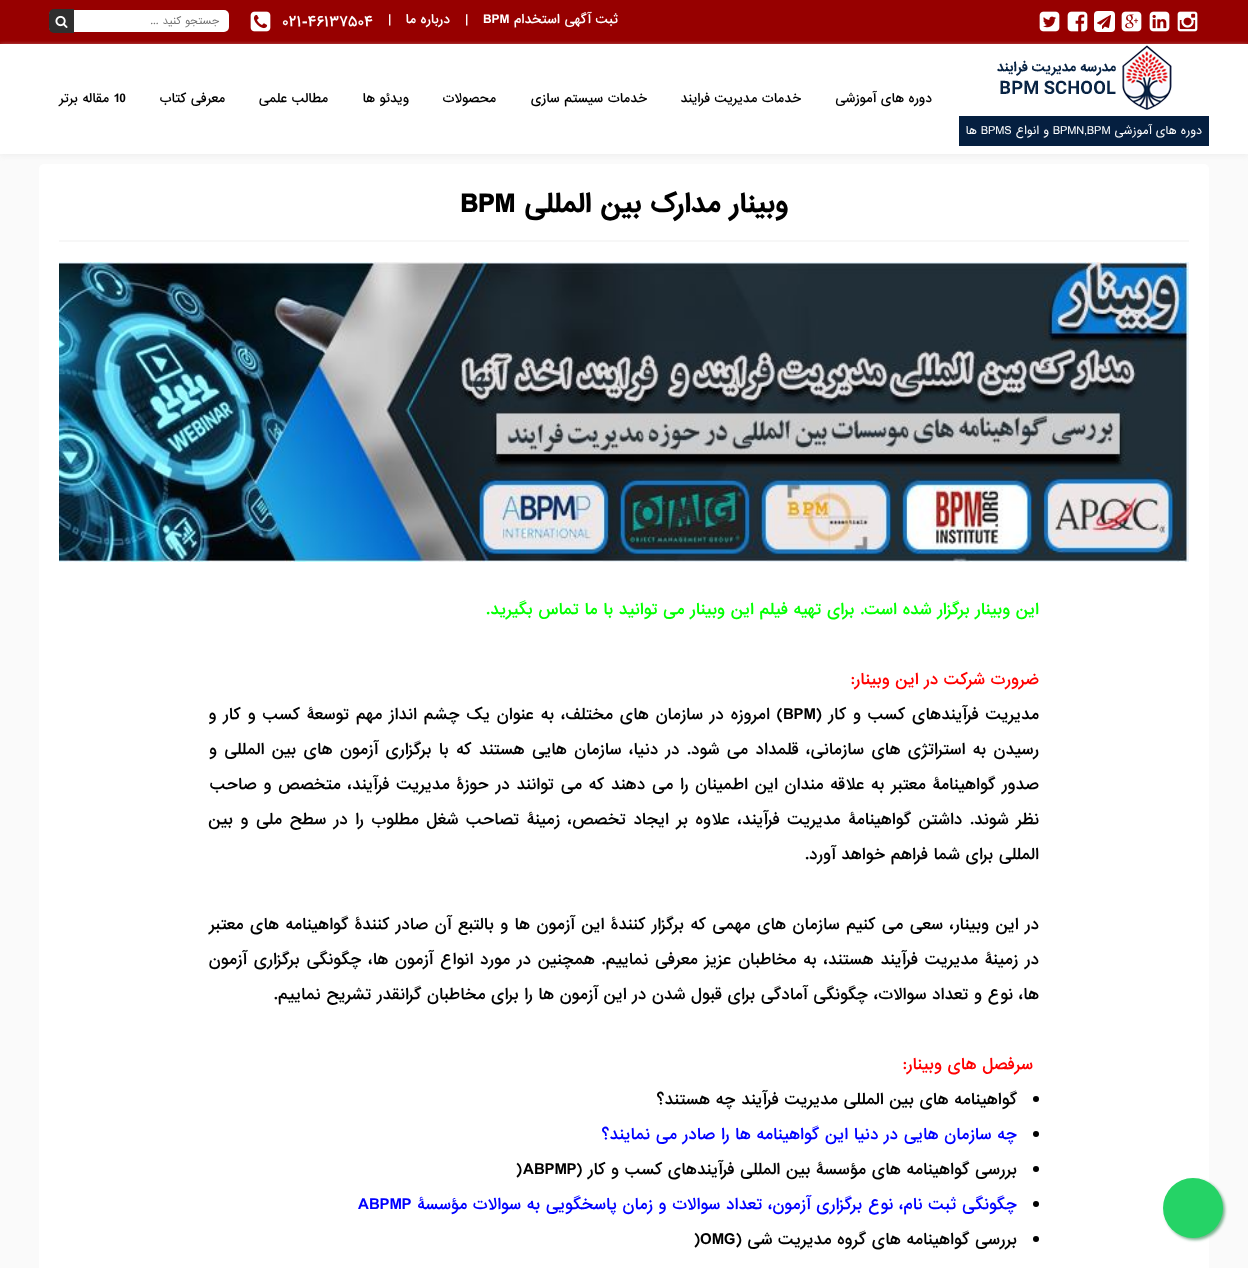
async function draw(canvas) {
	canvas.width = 1248;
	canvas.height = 1268;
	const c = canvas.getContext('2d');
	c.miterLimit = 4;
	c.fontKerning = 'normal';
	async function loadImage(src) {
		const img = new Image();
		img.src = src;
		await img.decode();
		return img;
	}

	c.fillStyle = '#fafafa';
	c.fillRect(0, 0, 1248, 1268);
	c.fillStyle = '#970000';
	c.fillRect(0, 0, 1248, 44);
	c.drawImage(await loadImage('img1.png'), 1177, 11, 21, 21);
	c.drawImage(await loadImage('img2.png'), 1149, 11, 21, 21);
	c.drawImage(await loadImage('img3.png'), 1121, 11, 21, 21);
	c.fillStyle = '#fff';
	c.beginPath();
	c.roundRect(1094, 11, 21, 21, 4);
	c.fill();
	c.drawImage(await loadImage('img4.png'), 1097, 15, 14, 14);
	c.drawImage(await loadImage('img5.png'), 1067, 11, 21, 21);
	c.drawImage(await loadImage('img6.png'), 1039, 11, 21, 21);
	c.direction = 'rtl';
	c.font = '500 12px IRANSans';
	c.fillText('ثبت آگهی استخدام', 618, 23);
	c.direction = 'ltr';
	c.fillText('BPM', 483, 23);
	c.fillText('|', 465, 23);
	c.direction = 'rtl';
	c.fillText('درباره ما', 450, 23);
	c.direction = 'ltr';
	c.fillText('|', 388, 23);
	c.font = '500 14px IRANSans';
	c.fillText('۰۲۱-۴۶۱۳۷۵۰۴', 282, 26);
	c.drawImage(await loadImage('img7.png'), 250, 11, 21, 21);
	c.beginPath();
	c.roundRect(49, 10, 180, 22, 5);
	c.fill();
	c.direction = 'rtl';
	c.font = '10px IRANSans';
	c.fillStyle = '#757575';
	c.fillText('جستجو کنید ...', 219, 24);
	c.fillStyle = '#2f2f2f';
	c.beginPath();
	c.roundRect(49, 9, 25, 24, [5, 0, 0, 5]);
	c.fill();
	c.drawImage(await loadImage('img8.png'), 55, 15, 13, 13);
	c.fillStyle = '#efefef';
	c.filter = 'blur(2.5px)';
	c.beginPath();
	c.rect(0, 46, 1248, 110);
	c.fill();
	c.filter = 'none';
	c.fillStyle = '#fff';
	c.fillRect(0, 44, 1248, 110);
	c.font = '500 12px IRANSans';
	c.fillStyle = '#000';
	for (const [text, x, y] of [
		['دوره های آموزشی', 932, 102],
		['خدمات مدیریت فرایند', 801, 102],
		['خدمات سیستم سازی', 647, 102],
		['محصولات', 496, 102],
		['ویدئو ها', 409, 102],
		['مطالب علمی', 328, 102],
		['معرفی کتاب', 225, 102],
	]) {
		c.fillText(text, x, y);
	}
	c.direction = 'ltr';
	c.fillText('10', 114, 102);
	c.direction = 'rtl';
	c.fillText('مقاله برتر', 109, 102);
	c.drawImage(await loadImage('img9.png'), 997, 45, 175, 65);
	c.fillStyle = '#051f40';
	c.fillRect(959, 116, 250, 30);
	c.font = '11px IRANSans';
	c.fillStyle = '#fff';
	c.fillText('دوره های آموزشی', 1202, 134);
	c.direction = 'ltr';
	c.fillText('BPMN,BPM', 1053, 134);
	c.direction = 'rtl';
	c.fillText('و انواع', 1049, 134);
	c.direction = 'ltr';
	c.fillText('BPMS', 981, 134);
	c.direction = 'rtl';
	c.fillText('ها', 977, 134);
	c.beginPath();
	c.roundRect(39, 164, 1170, 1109, 5);
	c.fill();
	c.fillStyle = '#f7f7f7';
	c.fillRect(59, 240, 1130, 2);
	c.font = 'bold 25px IRANSans';
	c.fillStyle = '#000';
	c.fillText('وبینار مدارک بین المللی', 788, 212);
	c.direction = 'ltr';
	c.fillText('BPM', 460, 212);
	c.drawImage(await loadImage('img10.png'), 59, 262, 1130, 300);
	c.direction = 'rtl';
	c.font = '500 15px IRANSans';
	c.fillStyle = '#0f0';
	c.fillText('این وبینار برگزار شده است. برای تهیه فیلم این وبینار می توانید با ما تماس بگیرید.', 1039, 614);
	c.fillStyle = '#f00';
	c.fillText('ضرورت شرکت در این وبینار:', 1039, 684);
	c.wordSpacing = '1.2px';
	c.fillStyle = '#000';
	c.fillText('مدیریت فرآیندهای کسب و کار (', 1039, 719);
	c.wordSpacing = '0px';
	c.direction = 'ltr';
	c.fillText('BPM', 783, 719);
	c.wordSpacing = '1.2px';
	c.direction = 'rtl';
	c.fillText(') امروزه در سازمان های مختلف، به عنوان یک چشم انداز مهم توسعۀ کسب و کار و', 783, 719);
	c.wordSpacing = '1.7px';
	c.fillText('رسیدن به استراتژی های سازمانی، قلمداد می شود. در دنیا، سازمان هایی هستند که با برگزاری آزمون های بین المللی و', 1039, 754);
	c.wordSpacing = '1.1px';
	c.fillText('صدور گواهینامۀ معتبر به علاقه مندان این اطمینان را می دهند که می توانند در حوزۀ مدیریت فرآیند، متخصص و صاحب', 1039, 789);
	c.wordSpacing = '1.9px';
	c.fillText('نظر شوند. داشتن گواهینامۀ مدیریت فرآیند، علاوه بر ایجاد تخصص، زمینۀ تصاحب شغل مطلوب را در سطح ملی و بین', 1039, 824);
	c.wordSpacing = '0px';
	c.fillText('المللی برای شما فراهم خواهد آورد.', 1039, 859);
	c.wordSpacing = '0.75px';
	c.fillText('در این وبینار، سعی می کنیم سازمان های مهمی که برگزار کنندۀ این آزمون ها و بالتبع آن صادر کنندۀ گواهینامه های معتبر', 1039, 929);
	c.wordSpacing = '1.1px';
	c.fillText('در زمینۀ مدیریت فرآیند هستند، به مخاطبان عزیز معرفی نماییم. همچنین در مورد انواع آزمون ها، چگونگی برگزاری آزمون', 1039, 964);
	c.wordSpacing = '0px';
	c.fillText('ها، نوع و تعداد سوالات، چگونگی آمادگی برای قبول شدن در این آزمون ها را برای مخاطبان گرانقدر تشریح نماییم.', 1039, 999);
	c.fillStyle = '#f00';
	c.fillText('سرفصل های وبینار:', 1033, 1069);
	c.fillStyle = '#000';
	c.beginPath();
	c.arc(1036, 1099, 3, 0, 2 * Math.PI);
	c.fill();
	c.fillText('گواهینامه های بین المللی مدیریت فرآیند چه هستند؟', 1017, 1104);
	c.beginPath();
	c.arc(1036, 1134, 3, 0, 2 * Math.PI);
	c.fill();
	c.fillStyle = '#00f';
	c.fillText('چه سازمان هایی در دنیا این گواهینامه ها را صادر می نمایند؟', 1017, 1139);
	c.fillStyle = '#000';
	c.beginPath();
	c.arc(1036, 1169, 3, 0, 2 * Math.PI);
	c.fill();
	c.fillText('بررسی گواهینامه های مؤسسۀ بین المللی فرآیندهای کسب و کار (', 1017, 1174);
	c.direction = 'ltr';
	c.fillText('ABPMP', 523, 1174);
	c.fillText(')', 516, 1174);
	c.beginPath();
	c.arc(1036, 1204, 3, 0, 2 * Math.PI);
	c.fill();
	c.direction = 'rtl';
	c.fillStyle = '#00f';
	c.fillText('چگونگی ثبت نام، نوع برگزاری آزمون، تعداد سوالات و زمان پاسخگویی به سوالات مؤسسۀ', 1017, 1209);
	c.direction = 'ltr';
	c.fillText('ABPMP', 358, 1209);
	c.fillStyle = '#000';
	c.beginPath();
	c.arc(1036, 1239, 3, 0, 2 * Math.PI);
	c.fill();
	c.direction = 'rtl';
	c.fillText('بررسی گواهینامه های گروه مدیریت شی (', 1017, 1244);
	c.direction = 'ltr';
	c.fillText('OMG', 700, 1244);
	c.fillText(')', 694, 1244);
	c.fillStyle = '#77b18d';
	c.filter = 'blur(1.5px)';
	c.beginPath();
	c.roundRect(1165, 1180, 60, 60, 30);
	c.fill();
	c.filter = 'none';
	c.fillStyle = '#25d366';
	c.beginPath();
	c.arc(1193, 1208, 30, 0, 2 * Math.PI);
	c.fill();
}

draw(document.querySelector('canvas'));
